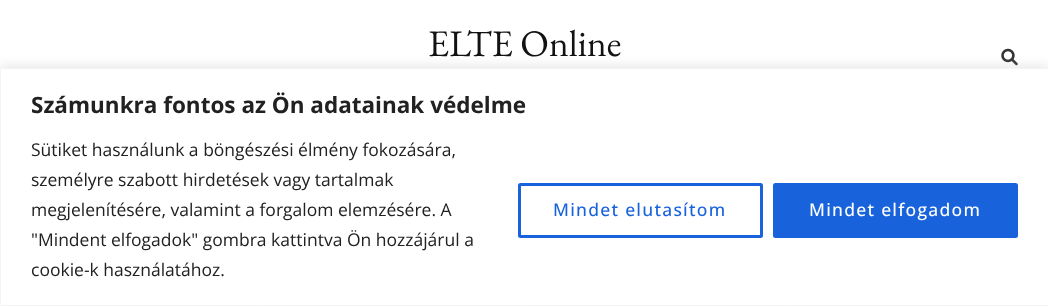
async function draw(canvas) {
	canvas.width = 1048;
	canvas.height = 306;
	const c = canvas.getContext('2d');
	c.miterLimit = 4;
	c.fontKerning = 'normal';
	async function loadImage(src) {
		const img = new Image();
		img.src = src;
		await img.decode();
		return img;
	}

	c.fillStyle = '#fff';
	c.fillRect(0, 0, 1048, 306);
	c.font = '37.5px EB Garamond';
	c.fillStyle = '#121212';
	c.fillText('ELTE Online', 428, 56);
	c.drawImage(await loadImage('img1.png'), 1001, 48, 17, 18);
	c.fillStyle = '#acabab4d';
	c.filter = 'blur(6px)';
	c.beginPath();
	c.rect(0, 66, 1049, 239);
	c.fill();
	c.filter = 'none';
	c.fillStyle = '#fff';
	c.beginPath();
	c.rect(0.5, 68.5, 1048, 237);
	c.fill();
	c.strokeStyle = '#f4f4f4';
	c.stroke();
	c.font = 'bold 22.5px Open Sans';
	c.fillStyle = '#212121';
	c.fillText('Számunkra fontos az Ön adatainak védelme', 31, 113);
	c.font = '17.5px Open Sans';
	for (const [text, x, y] of [
		['Sütiket használunk a böngészési élmény fokozására,', 31, 156],
		['személyre szabott hirdetések vagy tartalmak', 31, 186],
		['megjelenítésére, valamint a forgalom elemzésére. A', 31, 216],
		['"Mindent elfogadok" gombra kattintva Ön hozzájárul a', 31, 246],
		['cookie-k használatához.', 31, 276],
	]) {
		c.fillText(text, x, y);
	}
	c.beginPath();
	c.roundRect(519.5, 184.5, 242, 52, 1);
	c.strokeStyle = '#1863dc';
	c.lineWidth = 3;
	c.stroke();
	c.letterSpacing = '1.25px';
	c.font = '500 17.5px Open Sans';
	c.fillStyle = '#1863dc';
	c.fillText('Mindet elutasítom', 553, 216);
	c.beginPath();
	c.roundRect(774.5, 184.5, 242, 52, 1);
	c.fill();
	c.stroke();
	c.fillStyle = '#fff';
	c.fillText('Mindet elfogadom', 809, 216);
}

draw(document.querySelector('canvas'));
